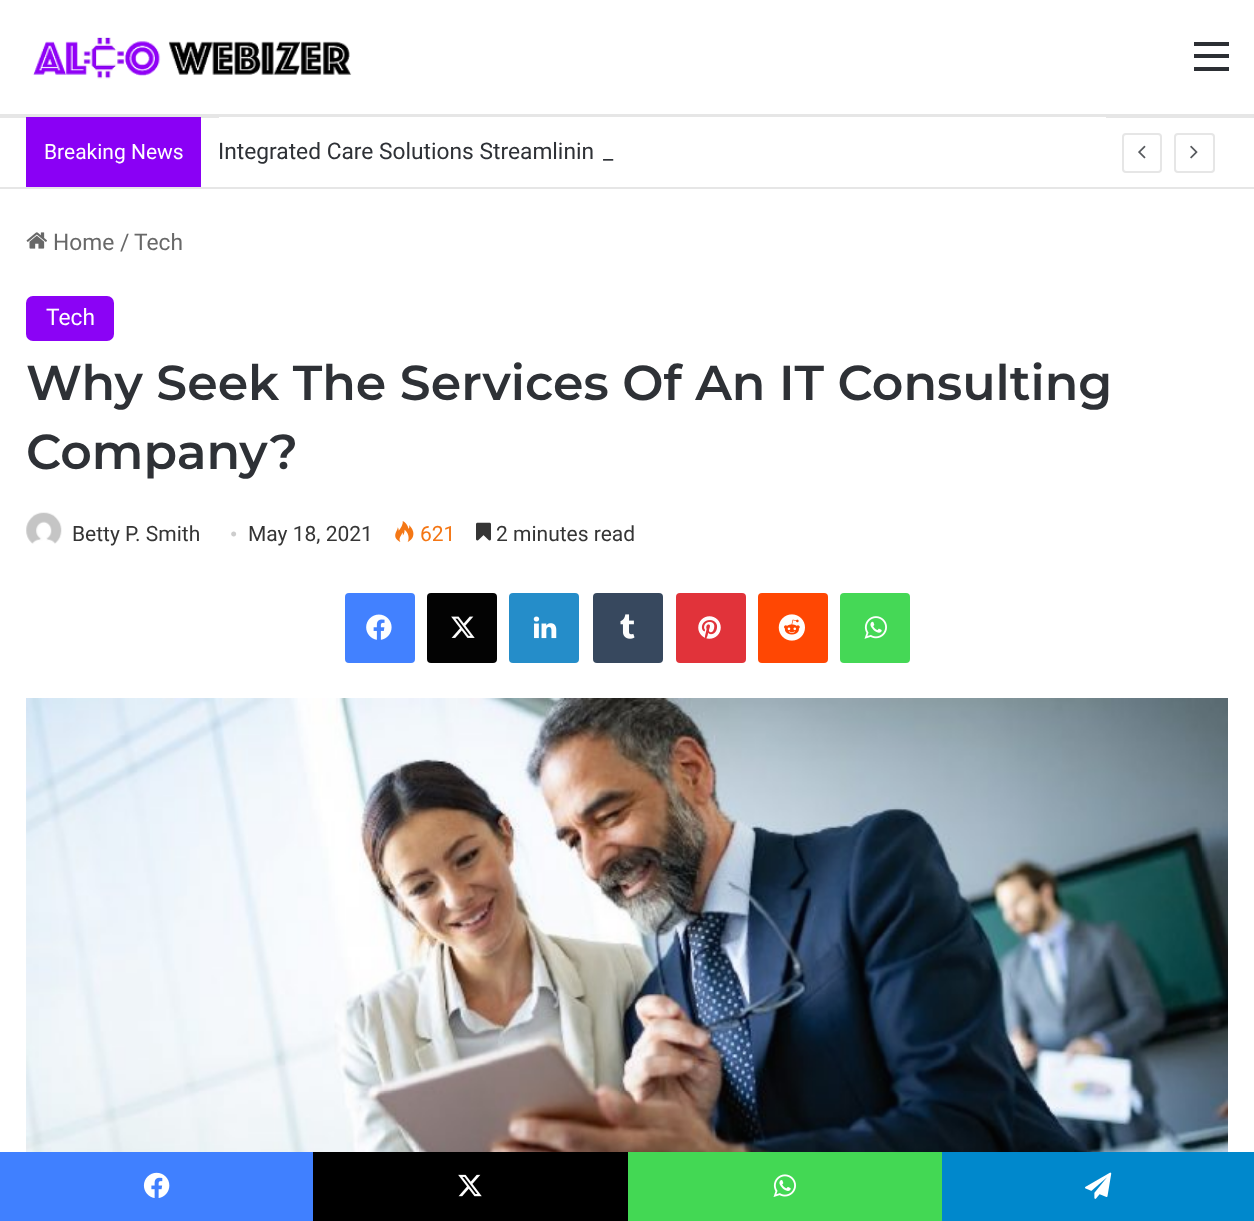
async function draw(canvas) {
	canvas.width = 1254;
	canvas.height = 1221;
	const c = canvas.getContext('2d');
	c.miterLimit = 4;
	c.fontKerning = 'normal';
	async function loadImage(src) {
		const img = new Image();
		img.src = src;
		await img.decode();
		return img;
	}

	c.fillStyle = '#fff';
	c.fillRect(0, 0, 1254, 1221);
	c.drawImage(await loadImage('img1.png'), 32, 37, 320, 42);
	for (const [x, y, w, h, color] of [
		[1194, 54, 35, 4, '#2c2f34'],
		[1194, 42, 35, 4, '#2c2f34'],
		[1194, 67, 35, 4, '#2c2f34'],
		[0, 114, 1254, 4, '#e6e6e6'],
		[0, 187, 1254, 2, '#e6e6e6'],
		[26, 117, 175, 70, '#8a00f5'],
	]) {
		c.fillStyle = color;
		c.fillRect(x, y, w, h);
	}
	c.font = '21px Roboto';
	c.fillStyle = '#fff';
	c.fillText('Breaking News', 44, 159);
	c.fillRect(219, 117, 887, 1);
	c.font = '22.75px Roboto';
	c.fillStyle = '#2e3136';
	c.fillText('Integrated Care Solutions Streamlinin', 218, 159);
	c.fillText('_', 603, 159);
	c.beginPath();
	c.roundRect(1123, 134, 38, 38, 3);
	c.strokeStyle = '#e6e6e6';
	c.lineWidth = 2;
	c.stroke();
	c.drawImage(await loadImage('img2.png'), 1138, 145, 8, 14);
	c.beginPath();
	c.roundRect(1175, 134, 39, 38, 3);
	c.stroke();
	c.drawImage(await loadImage('img3.png'), 1190, 145, 8, 14);
	c.drawImage(await loadImage('img4.png'), 26, 232, 21, 17);
	c.fillStyle = '#686868';
	for (const [text, x, y] of [
		['Home', 53, 250],
		['/', 120, 250],
		['Tech', 134, 250],
	]) {
		c.fillText(text, x, y);
	}
	c.fillStyle = '#8b03f5';
	c.beginPath();
	c.roundRect(26, 296, 88, 45, 7);
	c.fill();
	c.fillStyle = '#fff';
	c.fillText('Tech', 46, 325);
	c.font = '600 49px Montserrat';
	c.fillStyle = '#2e3136';
	c.fillText('Why Seek The Services Of An IT Consulting', 26, 400);
	c.fillText('Company?', 26, 469);
	c.drawImage(await loadImage('img5.png'), 26, 512, 36, 32);
	c.font = '21px Roboto';
	c.fillStyle = '#353535';
	c.fillText('Betty P. Smith', 72, 541);
	c.font = '21px Liberation Serif';
	c.fillStyle = '#cdcdcd';
	c.fillText('•', 230, 541);
	c.font = '21px Roboto';
	c.fillStyle = '#353535';
	c.fillText('May 18, 2021', 248, 541);
	c.drawImage(await loadImage('img6.png'), 395, 521, 19, 21);
	c.fillStyle = '#f47614';
	c.fillText('621', 420, 541);
	c.drawImage(await loadImage('img7.png'), 476, 522, 15, 19);
	c.fillStyle = '#353535';
	c.fillText('2 minutes read', 496, 541);
	c.fillStyle = '#4281ff';
	c.beginPath();
	c.roundRect(345, 593, 70, 70, 4);
	c.fill();
	c.drawImage(await loadImage('img8.png'), 366, 614, 26, 26);
	c.fillStyle = '#030303';
	c.beginPath();
	c.roundRect(427, 593, 70, 70, 4);
	c.fill();
	c.drawImage(await loadImage('img9.png'), 451, 616, 24, 22);
	c.fillStyle = '#258dc9';
	c.beginPath();
	c.roundRect(509, 593, 70, 70, 4);
	c.fill();
	c.drawImage(await loadImage('img10.png'), 533, 616, 24, 23);
	c.fillStyle = '#37485e';
	c.beginPath();
	c.roundRect(593, 593, 70, 70, 4);
	c.fill();
	c.drawImage(await loadImage('img11.png'), 620, 614, 15, 25);
	c.fillStyle = '#e1333a';
	c.beginPath();
	c.roundRect(676, 593, 70, 70, 4);
	c.fill();
	c.drawImage(await loadImage('img12.png'), 698, 616, 23, 23);
	c.fillStyle = '#ff4703';
	c.beginPath();
	c.roundRect(758, 593, 70, 70, 4);
	c.fill();
	c.drawImage(await loadImage('img13.png'), 778, 614, 27, 27);
	c.fillStyle = '#45d856';
	c.beginPath();
	c.roundRect(840, 593, 70, 70, 4);
	c.fill();
	c.drawImage(await loadImage('img14.png'), 864, 616, 23, 23);
	c.drawImage(await loadImage('img15.png'), 26, 698, 1202, 454);
	c.fillStyle = '#4080ff';
	c.fillRect(0, 1152, 313, 69);
	c.drawImage(await loadImage('img16.png'), 143, 1172, 27, 26);
	c.fillStyle = '#000';
	c.fillRect(313, 1152, 315, 69);
	c.drawImage(await loadImage('img17.png'), 458, 1174, 24, 23);
	c.fillStyle = '#43d854';
	c.fillRect(628, 1152, 314, 69);
	c.drawImage(await loadImage('img18.png'), 773, 1174, 23, 23);
	c.fillStyle = '#08c';
	c.fillRect(942, 1152, 312, 69);
	c.drawImage(await loadImage('img19.png'), 1085, 1172, 27, 27);
}

draw(document.querySelector('canvas'));
